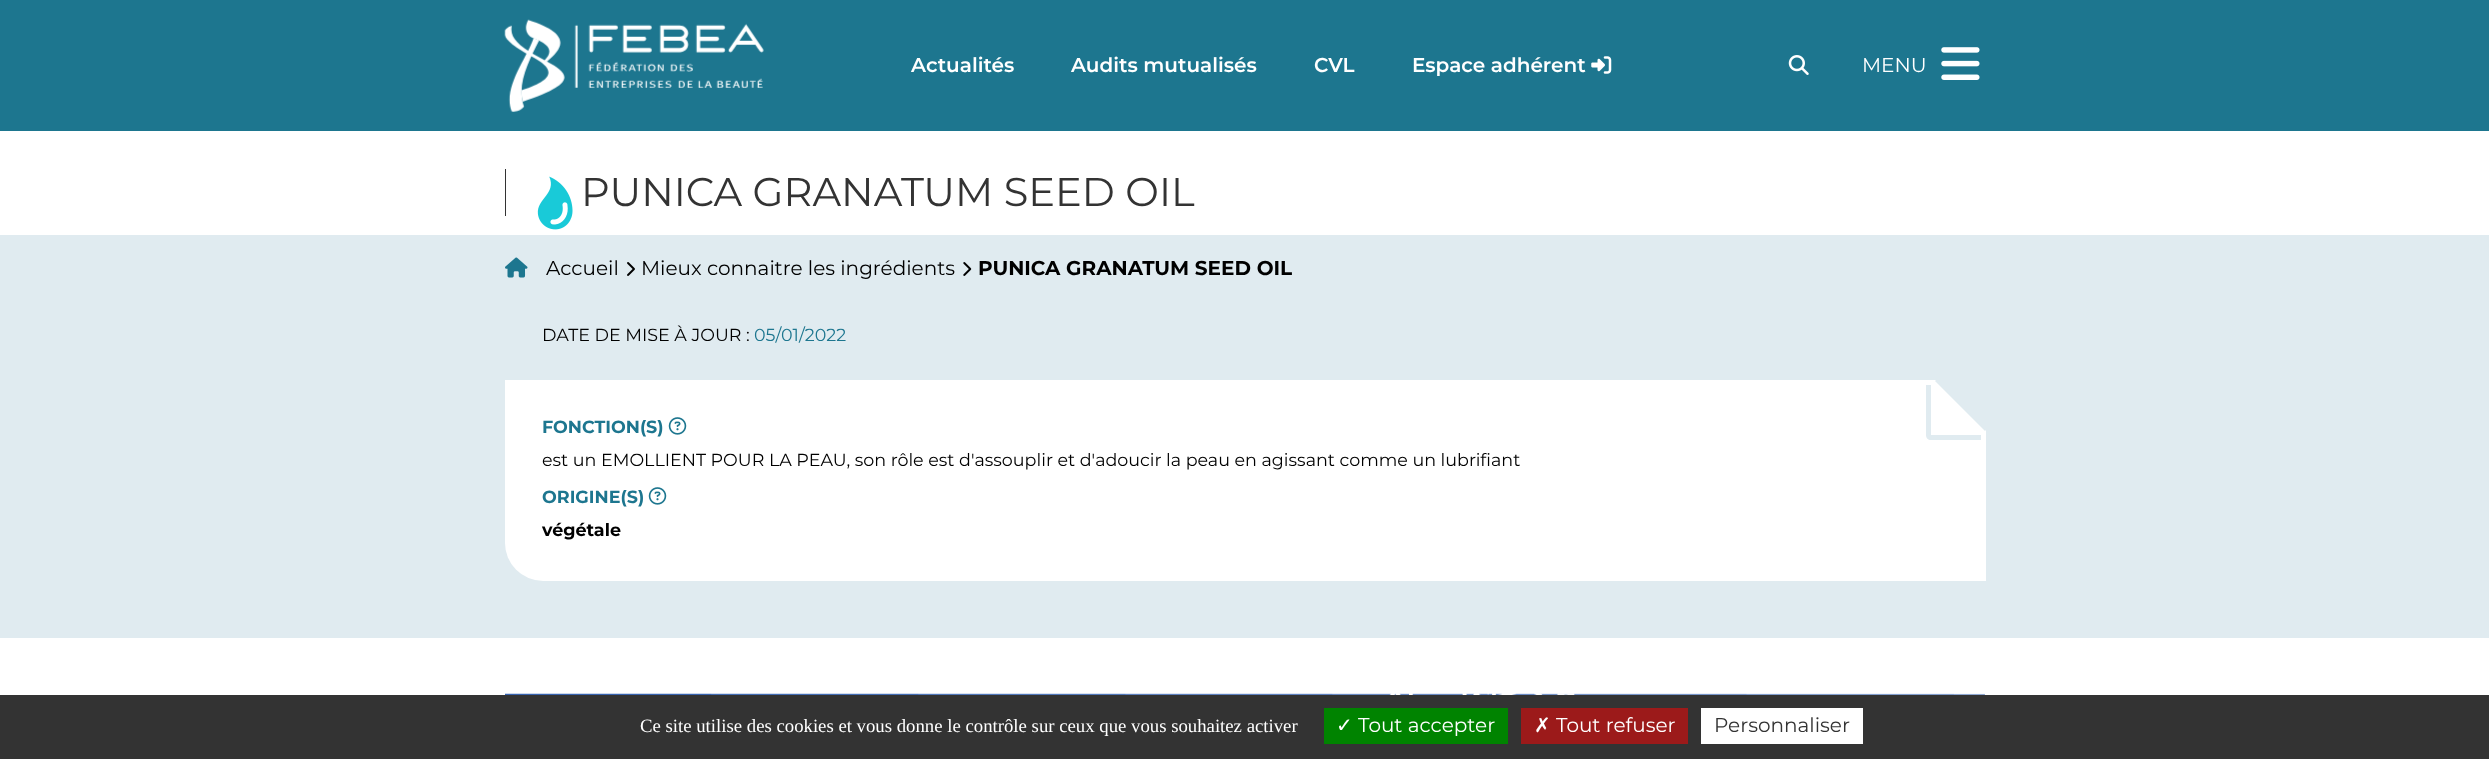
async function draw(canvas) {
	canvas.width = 2489;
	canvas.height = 759;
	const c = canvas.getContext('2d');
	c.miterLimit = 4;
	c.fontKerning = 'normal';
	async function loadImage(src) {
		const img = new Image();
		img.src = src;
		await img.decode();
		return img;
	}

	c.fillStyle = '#fff';
	c.fillRect(0, 0, 2489, 759);
	c.fillStyle = '#1d768f';
	c.fillRect(0, 0, 2489, 131);
	c.drawImage(await loadImage('img1.png'), 504, 19, 260, 93);
	c.font = '600 20px Montserrat';
	c.fillStyle = '#fff';
	for (const [text, x, y] of [
		['Actualités', 911, 72],
		['Audits mutualisés', 1071, 72],
		['CVL', 1314, 72],
		['Espace adhérent', 1412, 72],
	]) {
		c.fillText(text, x, y);
	}
	c.drawImage(await loadImage('img2.png'), 1591, 56, 21, 18);
	c.drawImage(await loadImage('img3.png'), 1788, 55, 21, 20);
	c.font = '20px Montserrat';
	c.fillText('MENU', 1862, 72);
	c.drawImage(await loadImage('img4.png'), 1941, 47, 39, 33);
	c.drawImage(await loadImage('img5.png'), 537, 176, 36, 54);
	c.fillStyle = '#333';
	c.fillRect(505, 169, 1, 47);
	c.font = '40px Montserrat';
	c.fillText('PUNICA GRANATUM SEED OIL', 581, 206);
	c.fillStyle = '#e0ebf0';
	c.fillRect(0, 235, 2489, 403);
	c.drawImage(await loadImage('img6.png'), 505, 257, 23, 21);
	c.font = '20px Montserrat';
	c.fillStyle = '#000';
	c.fillText('Accueil', 546, 275);
	c.drawImage(await loadImage('img7.png'), 627, 262, 8, 14);
	c.fillText('Mieux connaitre les ingrédients', 641, 275);
	c.drawImage(await loadImage('img8.png'), 963, 262, 9, 14);
	c.font = 'bold 20px Montserrat';
	c.fillText('PUNICA GRANATUM SEED OIL', 978, 275);
	c.font = '17.5px Montserrat';
	c.fillText('DATE DE MISE À JOUR :', 542, 341);
	c.fillStyle = '#1d768f';
	c.fillText('05/01/2022', 754, 341);
	c.fillStyle = '#fff';
	c.beginPath();
	c.roundRect(505, 380, 1481, 201, [0, 0, 0, 38]);
	c.fill();
	c.fillStyle = '#e0ebf0';
	c.beginPath();
	c.moveTo(1926, 385);
	c.lineTo(1981, 385);
	c.lineTo(1981, 440);
	c.lineTo(1931, 440);
	c.bezierCurveTo(1928, 440, 1926, 438, 1926, 435);
	c.closePath();
	c.moveTo(1931, 385);
	c.lineTo(1981, 385);
	c.lineTo(1981, 435);
	c.lineTo(1931, 435);
	c.closePath();
	c.fill('evenodd');
	c.beginPath();
	c.moveTo(1986, 430);
	c.lineTo(1985, 431);
	c.lineTo(1935, 381);
	c.lineTo(1936, 380);
	c.lineTo(1986, 380);
	c.closePath();
	c.fill();
	c.font = 'bold 17.5px Montserrat';
	c.fillStyle = '#1d768f';
	c.fillText('FONCTION(S)', 542, 433);
	c.drawImage(await loadImage('img9.png'), 668, 417, 19, 18);
	c.font = '17.5px Montserrat';
	c.fillStyle = '#000';
	c.fillText('est un EMOLLIENT POUR LA PEAU, son rôle est d\'assouplir et d\'adoucir la peau en agissant comme un lubrifiant', 542, 466);
	c.font = 'bold 17.5px Montserrat';
	c.fillStyle = '#1d768f';
	c.fillText('ORIGINE(S)', 542, 503);
	c.drawImage(await loadImage('img9.png'), 648, 487, 19, 18);
	c.fillStyle = '#000';
	c.fillText('végétale', 542, 536);
	c.drawImage(await loadImage('img10.png'), 505, 693, 1480, 2);
	c.fillStyle = '#333';
	c.fillRect(0, 695, 2489, 64);
	c.font = '18.75px Liberation Serif';
	c.fillStyle = '#fff';
	c.fillText('Ce site utilise des cookies et vous donne le contrôle sur ceux que vous souhaitez activer', 640, 732);
	c.fillStyle = '#008300';
	c.fillRect(1324, 708, 184, 36);
	c.font = '20px DejaVu Sans';
	c.fillStyle = '#fff';
	c.fillText('✓', 1336, 732);
	c.font = '20px Montserrat';
	c.fillText('Tout accepter', 1358, 732);
	c.fillStyle = '#9c1a1a';
	c.fillRect(1521, 708, 167, 36);
	c.font = '20px DejaVu Sans';
	c.fillStyle = '#fff';
	c.fillText('✗', 1534, 732);
	c.font = '20px Montserrat';
	c.fillText('Tout refuser', 1556, 732);
	c.fillRect(1701, 708, 162, 36);
	c.fillStyle = '#333';
	c.fillText('Personnaliser', 1714, 732);
}

draw(document.querySelector('canvas'));
